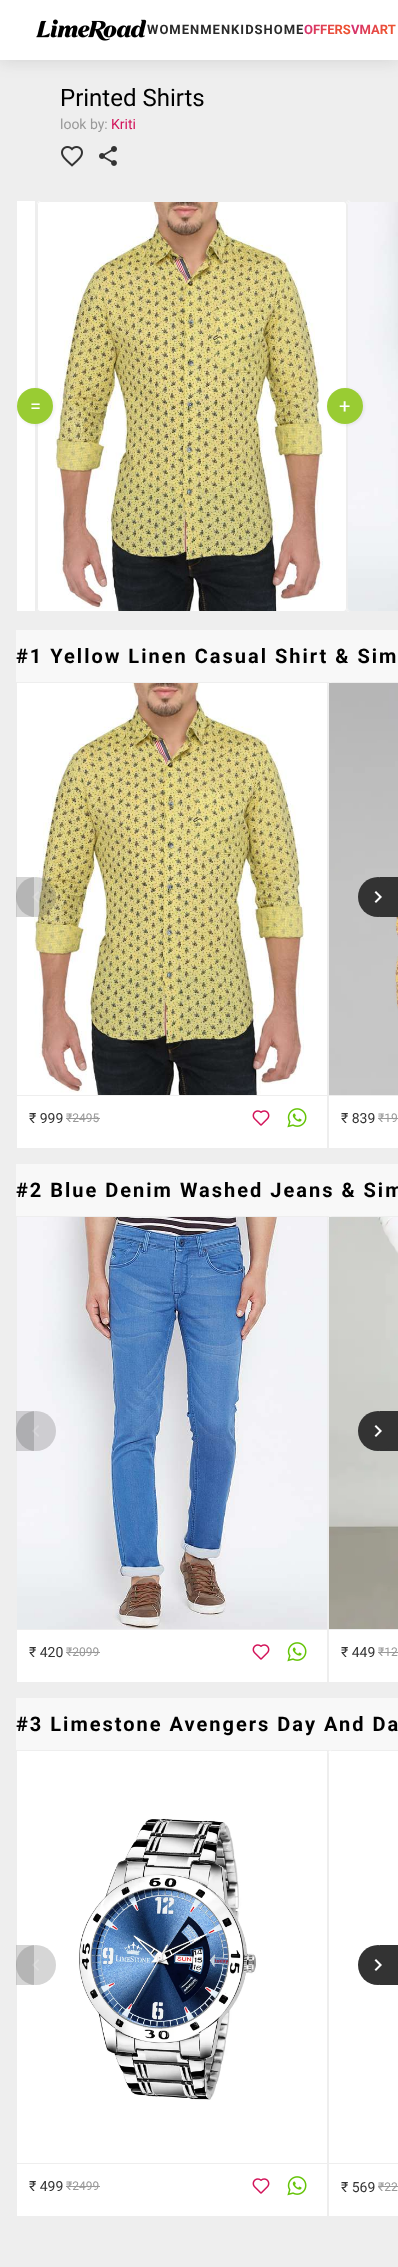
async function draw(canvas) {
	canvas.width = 398;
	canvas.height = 2267;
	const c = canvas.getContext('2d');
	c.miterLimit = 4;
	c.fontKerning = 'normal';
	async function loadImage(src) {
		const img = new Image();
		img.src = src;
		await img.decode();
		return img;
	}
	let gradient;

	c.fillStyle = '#eee';
	c.fillRect(0, 0, 398, 2267);
	c.fillStyle = '#55555529';
	c.filter = 'blur(8px)';
	c.beginPath();
	c.rect(0, 2, 398, 60);
	c.fill();
	c.filter = 'none';
	c.fillStyle = '#fff';
	c.fillRect(0, 0, 398, 60);
	c.drawImage(await loadImage('img1.png'), 36, 19, 111, 22);
	c.letterSpacing = '1px';
	c.font = 'bold 13px Roboto';
	c.fillStyle = '#2a2a2a';
	c.fillText('WOMENMENKIDSHOME', 147, 34);
	c.letterSpacing = '0px';
	gradient = c.createLinearGradient(306, 15, 348, 42);
	gradient.addColorStop(0, '#ce297e');
	gradient.addColorStop(0.73, '#ed5133');
	c.fillStyle = gradient;
	c.fillText('OFFERS', 304, 34);
	gradient = c.createLinearGradient(353, 16, 393, 42);
	gradient.addColorStop(0, '#ce297e');
	gradient.addColorStop(0.73, '#ed5133');
	c.fillStyle = gradient;
	c.fillText('VMART', 351, 34);
	c.font = '24px Roboto';
	c.fillStyle = '#000';
	c.fillText('Printed Shirts', 60, 106);
	c.font = '14px Roboto';
	c.fillStyle = '#999';
	c.fillText('look by:', 60, 129);
	c.fillStyle = '#d3145a';
	c.fillText('Kriti', 111, 129);
	c.drawImage(await loadImage('img2.png'), 61, 146, 22, 21);
	c.drawImage(await loadImage('img3.png'), 99, 146, 18, 20);
	c.fillStyle = '#fff';
	c.fillRect(17, 201, 18, 410);
	c.beginPath();
	c.roundRect(36.5, 200.5, 309, 411, 3.5);
	c.fill();
	c.strokeStyle = '#eee';
	c.stroke();
	c.beginPath();
	c.roundRect(37.5, 201.5, 309, 410, 3.5);
	c.stroke();
	c.drawImage(await loadImage('img4.png'), 38, 202, 308, 409);
	c.fillStyle = '#0000000d';
	c.filter = 'blur(1px)';
	c.beginPath();
	c.roundRect(17, 388, 38, 38, 19);
	c.fill();
	c.filter = 'none';
	c.fillStyle = '#9c3';
	c.beginPath();
	c.arc(35, 406, 18, 0, 2 * Math.PI);
	c.fill();
	c.font = '20px Roboto';
	c.fillStyle = '#fff';
	c.fillText('=', 30, 413);
	c.beginPath();
	c.roundRect(346, 200, 52, 412, [4, 0, 0, 4]);
	c.fill();
	c.beginPath();
	c.roundRect(346.5, 200.5, 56, 411, 3.5);
	c.stroke();
	c.beginPath();
	c.roundRect(347.5, 201.5, 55, 410, 3.5);
	c.stroke();
	c.drawImage(await loadImage('img5.png'), 348, 202, 50, 409);
	c.fillStyle = '#0000000d';
	c.filter = 'blur(1px)';
	c.beginPath();
	c.roundRect(327, 388, 38, 38, 19);
	c.fill();
	c.filter = 'none';
	c.fillStyle = '#9c3';
	c.beginPath();
	c.arc(345, 406, 18, 0, 2 * Math.PI);
	c.fill();
	c.fillStyle = '#fff';
	c.fillText('+', 339, 413);
	c.fillStyle = '#f8f8f8';
	c.fillRect(16, 630, 382, 52);
	c.letterSpacing = '2px';
	c.font = 'bold 20px Roboto';
	c.fillStyle = '#000';
	c.fillText('#1 Yellow Linen Casual Shirt & Sim', 16, 663);
	c.fillStyle = '#fff';
	c.beginPath();
	c.roundRect(16.5, 682.5, 311, 481, 3.5);
	c.fill();
	c.stroke();
	c.drawImage(await loadImage('img8.png'), 17, 683, 310, 412);
	c.fillStyle = '#33333333';
	c.fillRect(16, 877, 18, 40);
	c.beginPath();
	c.arc(36, 897, 20, 0, 2 * Math.PI);
	c.fill();
	c.drawImage(await loadImage('img6.png'), 32, 891, 7, 12);
	c.fillStyle = '#fff';
	c.beginPath();
	c.roundRect(328, 682, 70, 482, [4, 0, 0, 4]);
	c.fill();
	c.beginPath();
	c.roundRect(328.5, 682.5, 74, 481, 3.5);
	c.stroke();
	c.drawImage(await loadImage('img11.png'), 329, 683, 69, 412);
	c.fillStyle = '#333';
	c.fillRect(380, 877, 18, 40);
	c.beginPath();
	c.arc(378, 897, 20, 0, 2 * Math.PI);
	c.fill();
	c.drawImage(await loadImage('img7.png'), 374, 891, 8, 12);
	c.fillStyle = '#eee';
	c.fillRect(17, 1095, 310, 1);
	c.letterSpacing = '0px';
	c.font = '14px Roboto';
	c.fillStyle = '#333';
	c.fillText('₹ 999', 29, 1123);
	c.font = '12px Roboto';
	c.fillStyle = '#999';
	c.fillText('₹2495', 66, 1122);
	c.fillRect(66, 1118, 34, 1);
	c.drawImage(await loadImage('img9.png'), 252, 1110, 18, 16);
	c.drawImage(await loadImage('img10.png'), 287, 1108, 20, 20);
	c.fillStyle = '#eee';
	c.fillRect(329, 1095, 69, 1);
	c.font = '14px Roboto';
	c.fillStyle = '#333';
	c.fillText('₹ 839', 341, 1123);
	c.font = '12px Roboto';
	c.fillStyle = '#999';
	c.fillText('₹19', 378, 1122);
	for (const [x, y, w, h, color] of [
		[378, 1118, 20, 1, '#999'],
		[16, 1148, 382, 16, '#eee'],
		[16, 1164, 382, 52, '#f8f8f8'],
	]) {
		c.fillStyle = color;
		c.fillRect(x, y, w, h);
	}
	c.letterSpacing = '2px';
	c.font = 'bold 20px Roboto';
	c.fillStyle = '#000';
	c.fillText('#2 Blue Denim Washed Jeans & Sim', 16, 1197);
	c.fillStyle = '#fff';
	c.beginPath();
	c.roundRect(16.5, 1216.5, 311, 481, 3.5);
	c.fill();
	c.stroke();
	c.drawImage(await loadImage('img13.png'), 17, 1217, 310, 412);
	c.fillStyle = '#33333333';
	c.fillRect(16, 1411, 18, 40);
	c.beginPath();
	c.arc(36, 1431, 20, 0, 2 * Math.PI);
	c.fill();
	c.drawImage(await loadImage('img12.png'), 32, 1425, 7, 12);
	c.fillStyle = '#fff';
	c.beginPath();
	c.roundRect(328, 1216, 70, 482, [4, 0, 0, 4]);
	c.fill();
	c.beginPath();
	c.roundRect(328.5, 1216.5, 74, 481, 3.5);
	c.stroke();
	c.drawImage(await loadImage('img14.png'), 329, 1217, 69, 412);
	c.fillStyle = '#333';
	c.fillRect(380, 1411, 18, 40);
	c.beginPath();
	c.arc(378, 1431, 20, 0, 2 * Math.PI);
	c.fill();
	c.drawImage(await loadImage('img7.png'), 374, 1425, 8, 12);
	c.fillStyle = '#eee';
	c.fillRect(17, 1629, 310, 1);
	c.letterSpacing = '0px';
	c.font = '14px Roboto';
	c.fillStyle = '#333';
	c.fillText('₹ 420', 29, 1657);
	c.font = '12px Roboto';
	c.fillStyle = '#999';
	c.fillText('₹2099', 66, 1656);
	c.fillRect(66, 1652, 34, 1);
	c.drawImage(await loadImage('img9.png'), 252, 1644, 18, 16);
	c.drawImage(await loadImage('img10.png'), 287, 1642, 20, 20);
	c.fillStyle = '#eee';
	c.fillRect(329, 1629, 69, 1);
	c.font = '14px Roboto';
	c.fillStyle = '#333';
	c.fillText('₹ 449', 341, 1657);
	c.font = '12px Roboto';
	c.fillStyle = '#999';
	c.fillText('₹12', 378, 1656);
	for (const [x, y, w, h, color] of [
		[378, 1652, 20, 1, '#999'],
		[16, 1682, 382, 16, '#eee'],
		[16, 1698, 382, 52, '#f8f8f8'],
	]) {
		c.fillStyle = color;
		c.fillRect(x, y, w, h);
	}
	c.letterSpacing = '2px';
	c.font = 'bold 20px Roboto';
	c.fillStyle = '#000';
	c.fillText('#3 Limestone Avengers Day And Da', 16, 1731);
	c.fillStyle = '#fff';
	c.beginPath();
	c.roundRect(16.5, 1750.5, 311, 481, 3.5);
	c.fill();
	c.stroke();
	c.drawImage(await loadImage('img16.png'), 17, 1751, 310, 349);
	c.fillStyle = '#33333333';
	c.fillRect(16, 1945, 18, 40);
	c.beginPath();
	c.arc(36, 1965, 20, 0, 2 * Math.PI);
	c.fill();
	c.drawImage(await loadImage('img15.png'), 32, 1959, 7, 12);
	c.fillStyle = '#fff';
	c.beginPath();
	c.roundRect(328, 1750, 70, 482, [4, 0, 0, 4]);
	c.fill();
	c.beginPath();
	c.roundRect(328.5, 1750.5, 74, 481, 3.5);
	c.stroke();
	c.fillStyle = '#333';
	c.fillRect(380, 1945, 18, 40);
	c.beginPath();
	c.arc(378, 1965, 20, 0, 2 * Math.PI);
	c.fill();
	c.drawImage(await loadImage('img7.png'), 374, 1959, 8, 12);
	c.fillStyle = '#eee';
	c.fillRect(17, 2163, 310, 1);
	c.letterSpacing = '0px';
	c.font = '14px Roboto';
	c.fillStyle = '#333';
	c.fillText('₹ 499', 29, 2191);
	c.font = '12px Roboto';
	c.fillStyle = '#999';
	c.fillText('₹2499', 66, 2190);
	c.fillRect(66, 2186, 34, 1);
	c.drawImage(await loadImage('img9.png'), 252, 2178, 18, 16);
	c.drawImage(await loadImage('img10.png'), 287, 2176, 20, 20);
	c.fillStyle = '#fff';
	c.fillRect(329, 1751, 2, 2);
	c.fillStyle = '#eee';
	c.fillRect(329, 2163, 69, 1);
	c.font = '14px Roboto';
	c.fillStyle = '#333';
	c.fillText('₹ 569', 341, 2192);
	c.font = '12px Roboto';
	c.fillStyle = '#999';
	c.fillText('₹22', 378, 2191);
	c.fillRect(378, 2186, 20, 1);
	c.fillStyle = '#eee';
	c.fillRect(16, 2216, 382, 16);
}

draw(document.querySelector('canvas'));
